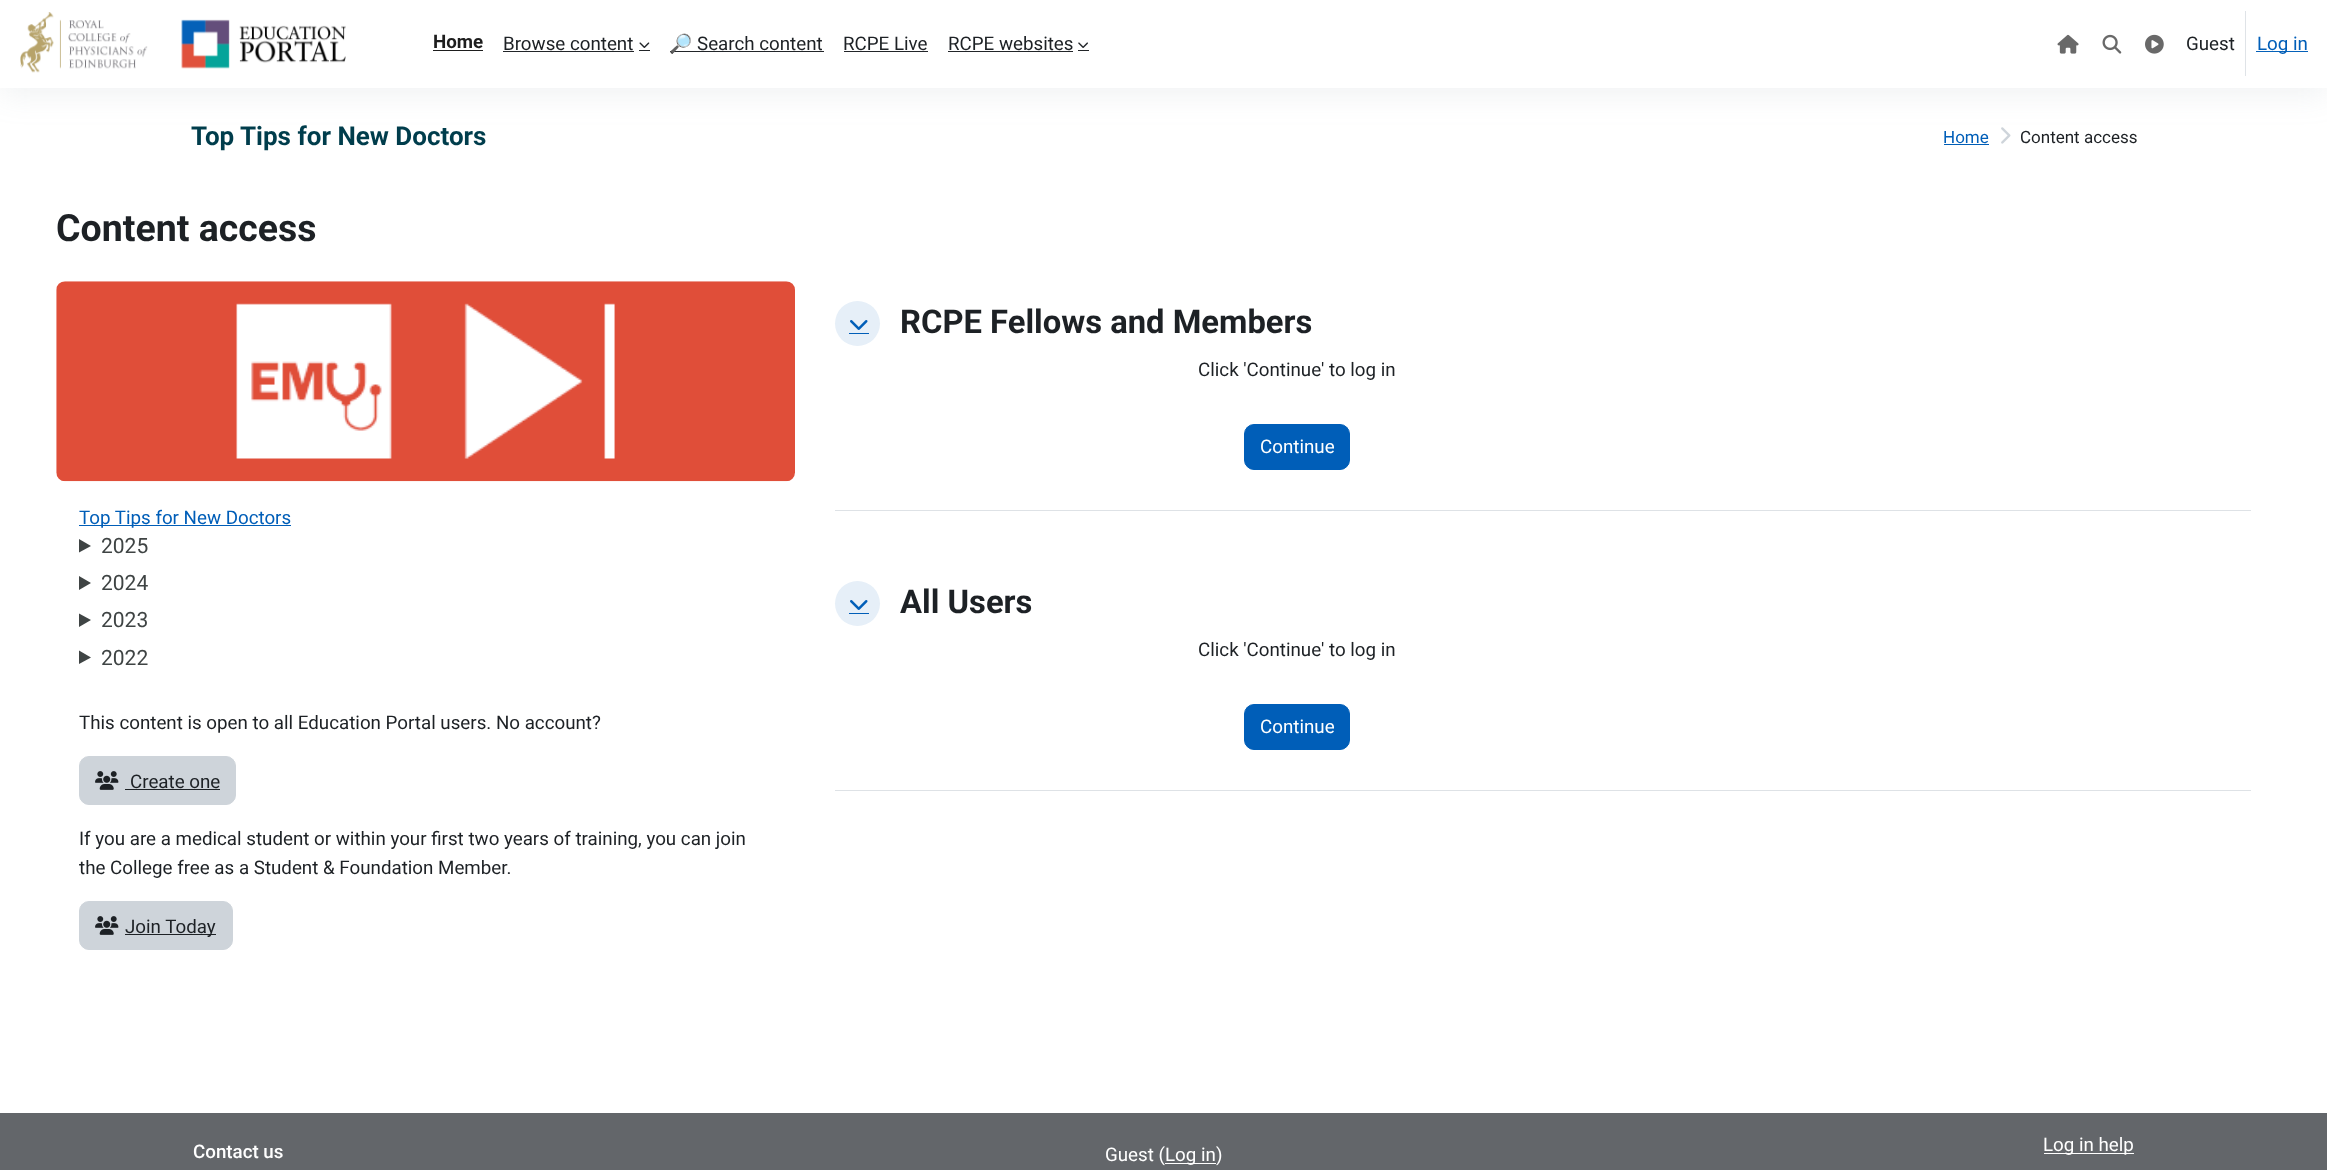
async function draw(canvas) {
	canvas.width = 2327;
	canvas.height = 1170;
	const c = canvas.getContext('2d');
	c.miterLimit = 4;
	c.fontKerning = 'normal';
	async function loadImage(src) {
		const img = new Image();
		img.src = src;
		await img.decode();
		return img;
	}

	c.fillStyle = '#fff';
	c.fillRect(0, 0, 2327, 1170);
	c.drawImage(await loadImage('img7.png'), 2001, 127, 10, 17);
	c.fillStyle = '#8c98a421';
	c.filter = 'blur(15px)';
	c.beginPath();
	c.rect(0, 8, 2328, 87);
	c.fill();
	c.filter = 'none';
	c.fillStyle = '#fff';
	c.fillRect(0, 0, 2327, 88);
	c.drawImage(await loadImage('img1.png'), 20, 12, 326, 61);
	c.font = 'bold 18.75px Roboto';
	c.fillStyle = '#1e1e1e';
	c.fillText('Home', 433, 48);
	c.fillRect(433, 50, 50, 1);
	c.font = '18.75px Roboto';
	c.fillStyle = '#1d2125';
	c.fillText('Browse content', 503, 50);
	c.fillStyle = '#222529';
	c.fillRect(503, 51, 131, 1);
	c.fillRect(639, 50, 11, 1);
	c.drawImage(await loadImage('img2.png'), 639, 42, 11, 6);
	c.fillRect(670, 51, 154, 1);
	c.font = '18.75px Noto Color Emoji';
	c.fillStyle = '#1d2125';
	c.fillText('🔎', 669, 50);
	c.font = '18.75px Roboto';
	c.fillText('Search content', 697, 50);
	c.fillText('RCPE Live', 843, 50);
	c.fillStyle = '#222529';
	c.fillRect(844, 51, 84, 1);
	c.fillStyle = '#1d2125';
	c.fillText('RCPE websites', 948, 50);
	c.fillStyle = '#222529';
	c.fillRect(948, 51, 125, 1);
	c.fillRect(1078, 50, 11, 1);
	c.drawImage(await loadImage('img3.png'), 1078, 42, 10, 6);
	c.drawImage(await loadImage('img4.png'), 2057, 34, 22, 20);
	c.drawImage(await loadImage('img5.png'), 2102, 34, 20, 20);
	c.drawImage(await loadImage('img6.png'), 2145, 34, 19, 20);
	c.fillStyle = '#1d2125';
	c.fillText('Guest', 2186, 50);
	c.fillStyle = '#dfe3e7';
	c.fillRect(2245, 11, 1, 65);
	c.fillStyle = '#0561b9';
	c.fillRect(2256, 51, 52, 1);
	c.fillStyle = '#005eb8';
	c.fillText('Log in', 2257, 50);
	c.font = 'bold 26px Roboto';
	c.fillStyle = '#003d4c';
	c.fillText('Top Tips for New Doctors', 191, 145);
	c.font = '17px Roboto';
	c.fillStyle = '#005eb8';
	c.fillText('Home', 1943, 143);
	c.fillRect(1944, 144, 45, 1);
	c.fillStyle = '#1d2125';
	c.fillText('Content access', 2020, 143);
	c.font = 'bold 37.5px Roboto';
	c.fillText('Content access', 56, 241);
	c.fillStyle = '#dee2e6';
	c.fillRect(835, 510, 1416, 1);
	c.fillStyle = '#e6eff8';
	c.beginPath();
	c.arc(857.5, 323.5, 22.5, 0, 2 * Math.PI);
	c.fill();
	c.drawImage(await loadImage('img8.png'), 850, 320, 18, 10);
	c.fillStyle = '#005eb8';
	c.fillRect(849, 333, 20, 1);
	c.font = 'bold 32.75px Roboto';
	c.fillStyle = '#1d2125';
	c.fillText('RCPE Fellows and Members', 900, 333);
	c.font = '18.75px Roboto';
	c.fillText('Click \'Continue\' to log in', 1198, 376);
	c.fillStyle = '#005eb8';
	c.beginPath();
	c.roundRect(1244.5, 424.5, 105, 45, 9.5);
	c.fill();
	c.strokeStyle = '#005eb8';
	c.stroke();
	c.fillStyle = '#fff';
	c.fillText('Continue', 1260, 453);
	c.drawImage(await loadImage('img9.png'), 56, 281, 739, 201);
	c.fillStyle = '#005eb8';
	c.fillRect(79, 525, 212, 1);
	c.fillText('Top Tips for New Doctors', 79, 524);
	c.fillStyle = '#3f4444';
	c.beginPath();
	c.moveTo(79, 539);
	c.lineTo(91, 546);
	c.lineTo(79, 552.5);
	c.closePath();
	c.fill();
	c.font = '21px Roboto';
	c.fillText('2025', 101, 553);
	c.beginPath();
	c.moveTo(79, 576);
	c.lineTo(91, 583);
	c.lineTo(79, 590);
	c.closePath();
	c.fill();
	c.fillText('2024', 101, 590);
	c.beginPath();
	c.moveTo(79, 613.5);
	c.lineTo(91, 620);
	c.lineTo(79, 627);
	c.closePath();
	c.fill();
	c.fillText('2023', 101, 627);
	c.beginPath();
	c.moveTo(79, 650.5);
	c.lineTo(91, 657.5);
	c.lineTo(79, 664);
	c.closePath();
	c.fill();
	c.fillText('2022', 101, 665);
	c.font = '18.75px Roboto';
	c.fillStyle = '#1d2125';
	c.fillText('This content is open to all Education Portal users. No account?', 79, 729);
	c.fillStyle = '#ced4da';
	c.beginPath();
	c.roundRect(79.5, 756.5, 156, 48, 9.5);
	c.fill();
	c.strokeStyle = '#ced4da';
	c.stroke();
	c.drawImage(await loadImage('img10.png'), 95, 771, 24, 19);
	c.fillStyle = '#1d2125';
	c.fillText('Create one', 130, 788);
	c.fillRect(125, 789, 95, 1);
	c.fillText('If you are a medical student or within your first two years of training, you can join', 79, 845);
	c.fillText('the College free as a Student & Foundation Member.', 79, 874);
	c.fillStyle = '#ced4da';
	c.beginPath();
	c.roundRect(79.5, 901.5, 153, 48, 9.5);
	c.fill();
	c.stroke();
	c.drawImage(await loadImage('img10.png'), 95, 916, 24, 19);
	c.fillStyle = '#1d2125';
	c.fillRect(125, 934, 91, 1);
	c.fillText('Join Today', 125, 933);
	c.fillStyle = '#dee2e6';
	c.fillRect(835, 790, 1416, 1);
	c.fillStyle = '#e6eff8';
	c.beginPath();
	c.arc(857.5, 603.5, 22.5, 0, 2 * Math.PI);
	c.fill();
	c.drawImage(await loadImage('img8.png'), 850, 600, 18, 10);
	c.fillStyle = '#005eb8';
	c.fillRect(849, 613, 20, 1);
	c.font = 'bold 32.75px Roboto';
	c.fillStyle = '#1d2125';
	c.fillText('All Users', 900, 613);
	c.font = '18.75px Roboto';
	c.fillText('Click \'Continue\' to log in', 1198, 656);
	c.fillStyle = '#005eb8';
	c.beginPath();
	c.roundRect(1244.5, 704.5, 105, 45, 9.5);
	c.fill();
	c.strokeStyle = '#005eb8';
	c.stroke();
	c.fillStyle = '#fff';
	c.fillText('Continue', 1260, 733);
	c.fillStyle = '#63666a';
	c.fillRect(0, 1113, 2327, 57);
	c.font = '500 18.75px Roboto';
	c.fillStyle = '#fff';
	c.fillText('Contact us', 193, 1158);
	c.font = '18.75px Roboto';
	c.fillText('Guest (', 1105, 1161);
	c.fillRect(1165, 1163, 51, 1);
	c.fillText('Log in)', 1165, 1161);
	c.fillRect(2044, 1153, 90, 1);
	c.fillText('Log in help', 2043, 1151);
}

draw(document.querySelector('canvas'));
